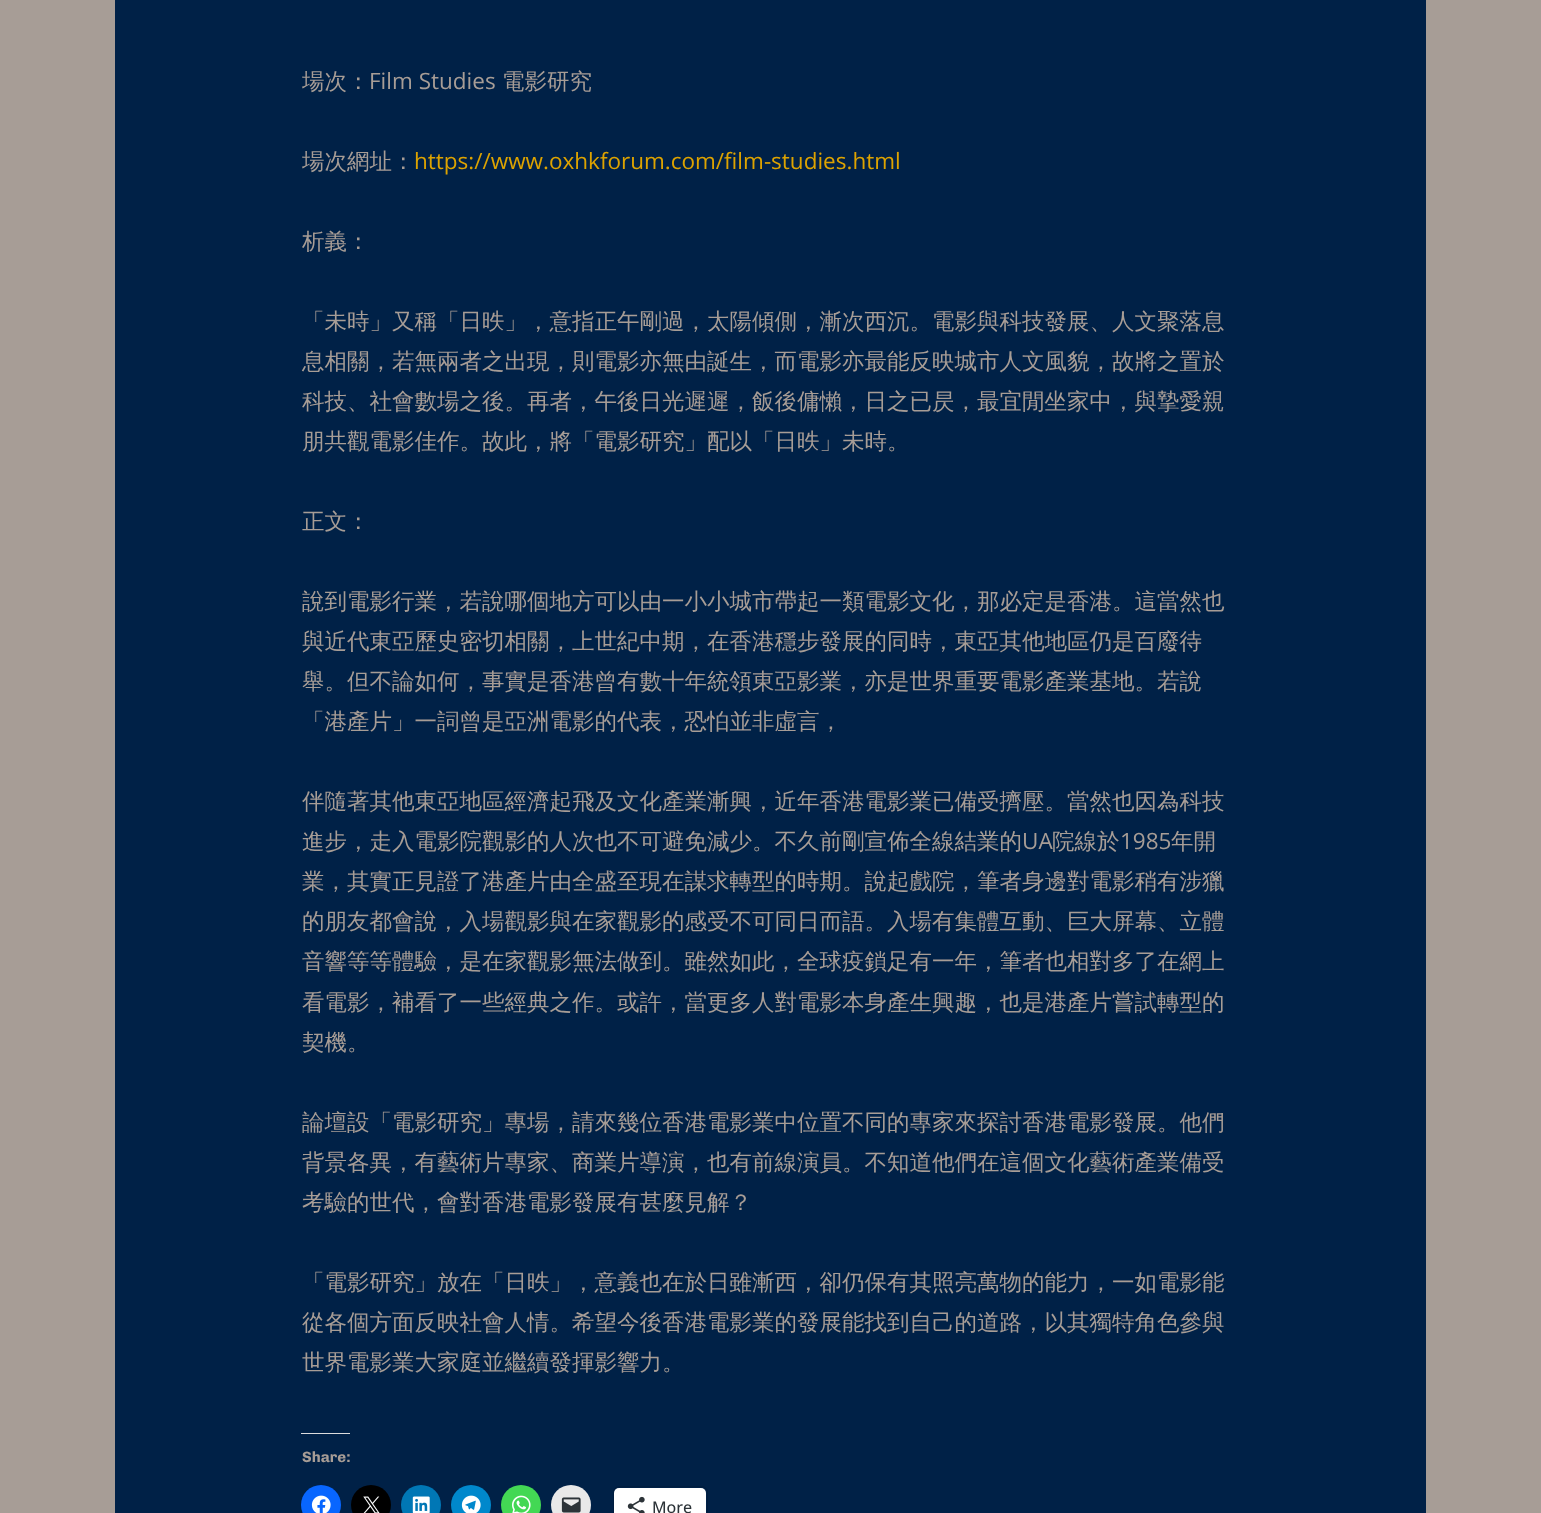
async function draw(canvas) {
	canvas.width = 1541;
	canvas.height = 1513;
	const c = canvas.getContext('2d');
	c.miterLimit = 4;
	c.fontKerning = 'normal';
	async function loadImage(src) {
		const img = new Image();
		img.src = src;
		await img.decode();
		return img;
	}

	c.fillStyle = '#a79d96';
	c.fillRect(0, 0, 1541, 1513);
	c.fillStyle = '#002147';
	c.fillRect(115, 0, 1311, 1513);
	c.font = '500 22.5px WenQuanYi Zen Hei';
	c.fillStyle = '#a79d96';
	c.fillText('場次：', 302, 89);
	c.font = '22.5px Open Sans';
	c.fillText('Film Studies', 369, 89);
	c.font = '500 22.5px WenQuanYi Zen Hei';
	c.fillText('電影研究', 502, 89);
	c.fillText('場次網址：', 302, 169);
	c.font = '22.5px Open Sans';
	c.fillStyle = '#dda300';
	c.fillText('https://www.oxhkforum.com/film-studies.html', 414, 169);
	c.font = '500 22.5px WenQuanYi Zen Hei';
	c.fillStyle = '#a79d96';
	for (const [text, x, y] of [
		['析義：', 302, 249],
		['「未時」又稱「日昳」，意指正午剛過，太陽傾側，漸次西沉。電影與科技發展、人文聚落息', 302, 329],
		['息相關，若無兩者之出現，則電影亦無由誕生，而電影亦最能反映城市人文風貌，故將之置於', 302, 369],
		['科技、社會數場之後。再者，午後日光遲遲，飯後傭懶，日之已昃，最宜閒坐家中，與摯愛親', 302, 409],
		['朋共觀電影佳作。故此，將「電影研究」配以「日昳」未時。', 302, 449],
		['正文：', 302, 529],
		['說到電影行業，若說哪個地方可以由一小小城市帶起一類電影文化，那必定是香港。這當然也', 302, 609],
		['與近代東亞歷史密切相關，上世紀中期，在香港穩步發展的同時，東亞其他地區仍是百廢待', 302, 649],
		['舉。但不論如何，事實是香港曾有數十年統領東亞影業，亦是世界重要電影產業基地。若說', 302, 689],
		['「港產片」一詞曾是亞洲電影的代表，恐怕並非虛言，', 302, 729],
		['伴隨著其他東亞地區經濟起飛及文化產業漸興，近年香港電影業已備受擠壓。當然也因為科技', 302, 809],
		['進步，走入電影院觀影的人次也不可避免減少。不久前剛宣佈全線結業的', 302, 849],
	]) {
		c.fillText(text, x, y);
	}
	c.font = '22.5px Open Sans';
	c.fillText('UA', 1022, 849);
	c.font = '500 22.5px WenQuanYi Zen Hei';
	c.fillText('院線於', 1052, 849);
	c.font = '22.5px Open Sans';
	c.fillText('1985', 1120, 849);
	c.font = '500 22.5px WenQuanYi Zen Hei';
	for (const [text, x, y] of [
		['年開', 1171, 849],
		['業，其實正見證了港產片由全盛至現在謀求轉型的時期。說起戲院，筆者身邊對電影稍有涉獵', 302, 889],
		['的朋友都會說，入場觀影與在家觀影的感受不可同日而語。入場有集體互動、巨大屏幕、立體', 302, 929],
		['音響等等體驗，是在家觀影無法做到。雖然如此，全球疫鎖足有一年，筆者也相對多了在網上', 302, 969],
		['看電影，補看了一些經典之作。或許，當更多人對電影本身產生興趣，也是港產片嘗試轉型的', 302, 1010],
		['契機。', 302, 1050],
		['論壇設「電影研究」專場，請來幾位香港電影業中位置不同的專家來探討香港電影發展。他們', 302, 1130],
		['背景各異，有藝術片專家、商業片導演，也有前線演員。不知道他們在這個文化藝術產業備受', 302, 1170],
		['考驗的世代，會對香港電影發展有甚麼見解？', 302, 1210],
		['「電影研究」放在「日昳」，意義也在於日雖漸西，卻仍保有其照亮萬物的能力，一如電影能', 302, 1290],
		['從各個方面反映社會人情。希望今後香港電影業的發展能找到自己的道路，以其獨特角色參與', 302, 1330],
		['世界電影業大家庭並繼續發揮影響力。', 302, 1370],
	]) {
		c.fillText(text, x, y);
	}
	c.fillStyle = '#dcdcde';
	c.fillRect(301, 1433, 49, 1);
	c.font = 'bold 15px Chivo';
	c.fillStyle = '#a79d96';
	c.fillText('Share:', 302, 1462);
	c.fillStyle = '#0866ff';
	c.beginPath();
	c.arc(321, 1505, 20, 0, 2 * Math.PI);
	c.fill();
	c.drawImage(await loadImage('img1.png'), 311, 1495, 20, 18);
	c.fillStyle = '#000';
	c.beginPath();
	c.arc(371, 1505, 20, 0, 2 * Math.PI);
	c.fill();
	c.drawImage(await loadImage('img2.png'), 363, 1496, 17, 17);
	c.fillStyle = '#0077b5';
	c.beginPath();
	c.arc(421, 1505, 20, 0, 2 * Math.PI);
	c.fill();
	c.drawImage(await loadImage('img3.png'), 412, 1496, 18, 17);
	c.fillStyle = '#08c';
	c.beginPath();
	c.arc(471, 1505, 20, 0, 2 * Math.PI);
	c.fill();
	c.drawImage(await loadImage('img4.png'), 461, 1495, 20, 18);
	c.fillStyle = '#43d854';
	c.beginPath();
	c.arc(521, 1505, 20, 0, 2 * Math.PI);
	c.fill();
	c.drawImage(await loadImage('img5.png'), 512, 1495, 19, 18);
	c.fillStyle = '#e9e9e9';
	c.beginPath();
	c.arc(571, 1505, 20, 0, 2 * Math.PI);
	c.fill();
	c.drawImage(await loadImage('img6.png'), 561, 1497, 20, 16);
	c.beginPath();
	c.roundRect(613.5, 1486.5, 94, 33, 5.5);
	c.strokeStyle = '#001d3e';
	c.stroke();
	c.fillStyle = '#fff';
	c.beginPath();
	c.roundRect(614, 1488, 92, 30, 5);
	c.fill();
	c.drawImage(await loadImage('img7.png'), 627, 1496, 18, 17);
	c.font = '500 16px Open Sans';
	c.fillStyle = '#2c3338';
	c.fillText('More', 652, 1513);
}

draw(document.querySelector('canvas'));
